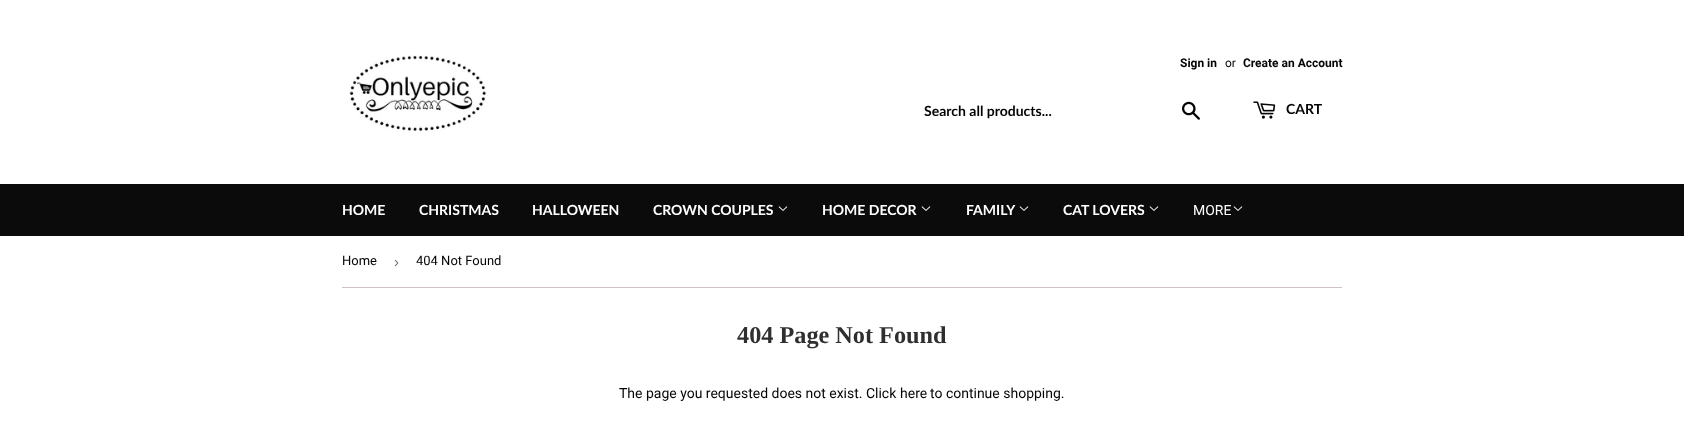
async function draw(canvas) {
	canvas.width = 1684;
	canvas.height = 437;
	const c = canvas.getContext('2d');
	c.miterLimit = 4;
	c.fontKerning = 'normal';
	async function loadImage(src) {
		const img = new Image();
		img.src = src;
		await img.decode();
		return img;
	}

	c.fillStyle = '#fff';
	c.fillRect(0, 0, 1684, 437);
	c.drawImage(await loadImage('img1.png'), 349, 55, 138, 76);
	c.font = 'bold 12px Roboto';
	c.fillStyle = '#040404';
	c.fillText('Sign in', 1180, 67);
	c.font = '12px Roboto';
	c.fillText('or', 1225, 67);
	c.font = 'bold 12px Roboto';
	c.fillText('Create an Account', 1243, 67);
	c.font = 'bold 14px Lato';
	c.fillText('Search all products...', 924, 116);
	c.drawImage(await loadImage('img2.png'), 1182, 101, 18, 19);
	c.drawImage(await loadImage('img3.png'), 1253, 101, 23, 18);
	c.fillText('CART', 1286, 114);
	c.fillStyle = '#0c0b0b';
	c.fillRect(0, 184, 1684, 52);
	c.fillStyle = '#fff';
	for (const [text, x, y] of [
		['HOME', 342, 215],
		['CHRISTMAS', 419, 215],
		['HALLOWEEN', 532, 215],
		['CROWN COUPLES', 653, 215],
	]) {
		c.fillText(text, x, y);
	}
	c.drawImage(await loadImage('img4.png'), 778, 206, 10, 5);
	c.fillText('HOME DECOR', 822, 215);
	c.drawImage(await loadImage('img4.png'), 921, 206, 10, 5);
	c.fillText('FAMILY', 966, 215);
	c.drawImage(await loadImage('img4.png'), 1019, 206, 10, 5);
	c.fillText('CAT LOVERS', 1063, 215);
	c.drawImage(await loadImage('img4.png'), 1149, 206, 10, 5);
	c.font = '14px Roboto';
	c.fillText('MORE', 1193, 215);
	c.drawImage(await loadImage('img4.png'), 1233, 206, 10, 5);
	c.fillStyle = '#cdc2c2';
	c.fillRect(342, 287, 1000, 1);
	c.font = '13px Roboto';
	c.fillStyle = '#040404';
	c.fillText('Home', 342, 265);
	c.font = '15px Liberation Sans';
	c.fillStyle = '#767676';
	c.fillText('›', 394, 267);
	c.font = '13px Roboto';
	c.fillStyle = '#040404';
	c.fillText('404 Not Found', 416, 265);
	c.font = 'bold 24.25px Liberation Serif';
	c.fillStyle = '#2f2f2f';
	c.fillText('404 Page Not Found', 737, 343);
	c.font = '14px Roboto';
	c.fillStyle = '#040404';
	for (const [text, x, y] of [
		['The page you requested does not exist. Click', 619, 398],
		['here', 900, 398],
		['to continue shopping.', 930, 398],
	]) {
		c.fillText(text, x, y);
	}
}

draw(document.querySelector('canvas'));
